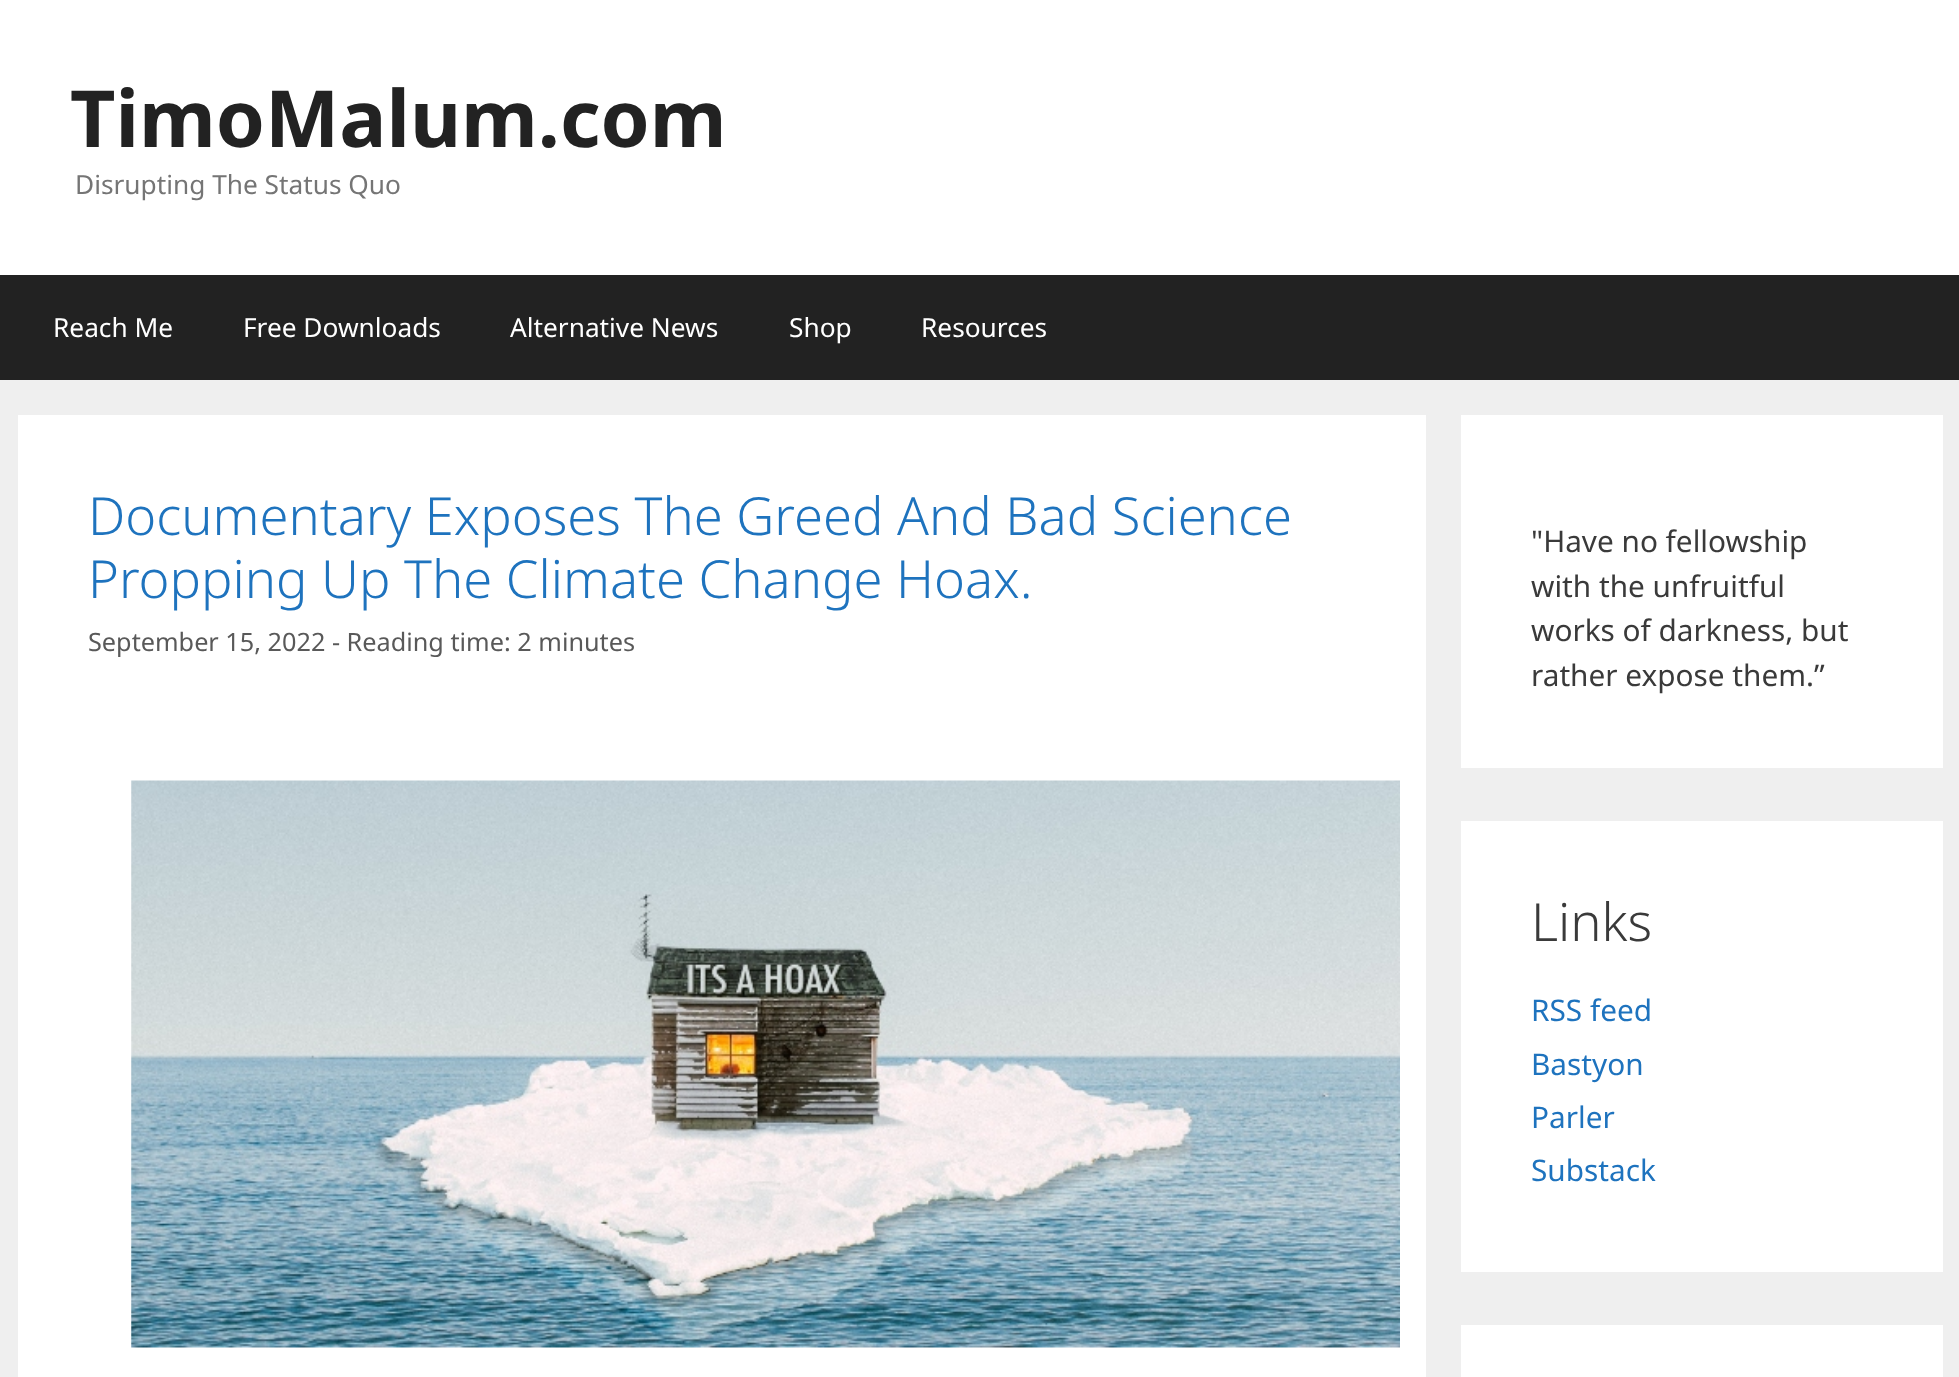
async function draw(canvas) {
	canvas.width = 1959;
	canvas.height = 1377;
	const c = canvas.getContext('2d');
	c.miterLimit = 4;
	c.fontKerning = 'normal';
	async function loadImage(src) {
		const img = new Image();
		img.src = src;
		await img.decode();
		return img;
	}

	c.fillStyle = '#efefef';
	c.fillRect(0, 0, 1959, 1377);
	c.fillStyle = '#fff';
	c.fillRect(0, 0, 1959, 275);
	c.font = 'bold 78.75px Noto Sans';
	c.fillStyle = '#222';
	c.fillText('TimoMalum.com', 70, 147);
	c.font = '26.25px Noto Sans';
	c.fillStyle = '#757575';
	c.fillText('Disrupting The Status Quo', 75, 194);
	c.fillStyle = '#222';
	c.fillRect(0, 275, 1959, 105);
	c.fillStyle = '#fff';
	for (const [text, x, y] of [
		['Reach Me', 53, 337],
		['Free Downloads', 243, 337],
		['Alternative News', 510, 337],
		['Shop', 789, 337],
		['Resources', 921, 337],
	]) {
		c.fillText(text, x, y);
	}
	c.fillRect(18, 415, 1408, 962);
	c.font = '300 52.5px Noto Sans';
	c.fillStyle = '#1e73be';
	c.fillText('Documentary Exposes The Greed And Bad Science', 88, 535);
	c.fillText('Propping Up The Climate Change Hoax.', 88, 598);
	c.font = '25.25px Noto Sans';
	c.fillStyle = '#595959';
	c.fillText('September 15, 2022 - Reading time: 2 minutes', 88, 651);
	c.drawImage(await loadImage('img1.png'), 131, 780, 1269, 568);
	c.fillStyle = '#fff';
	c.fillRect(1461, 415, 482, 353);
	c.font = '29.75px Noto Sans';
	c.fillStyle = '#3a3a3a';
	for (const [text, x, y] of [
		['"Have no fellowship', 1531, 552],
		['with the unfruitful', 1531, 597],
		['works of darkness, but', 1531, 641],
		['rather expose them.”', 1531, 686],
	]) {
		c.fillText(text, x, y);
	}
	c.fillStyle = '#fff';
	c.fillRect(1461, 821, 482, 451);
	c.font = '300 52.5px Noto Sans';
	c.fillStyle = '#3a3a3a';
	c.fillText('Links', 1531, 941);
	c.font = '29.75px Noto Sans';
	c.fillStyle = '#1e73be';
	for (const [text, x, y] of [
		['RSS feed', 1531, 1021],
		['Bastyon', 1531, 1075],
		['Parler', 1531, 1128],
		['Substack', 1531, 1181],
	]) {
		c.fillText(text, x, y);
	}
	c.fillStyle = '#fff';
	c.fillRect(1461, 1325, 482, 52);
}

draw(document.querySelector('canvas'));
